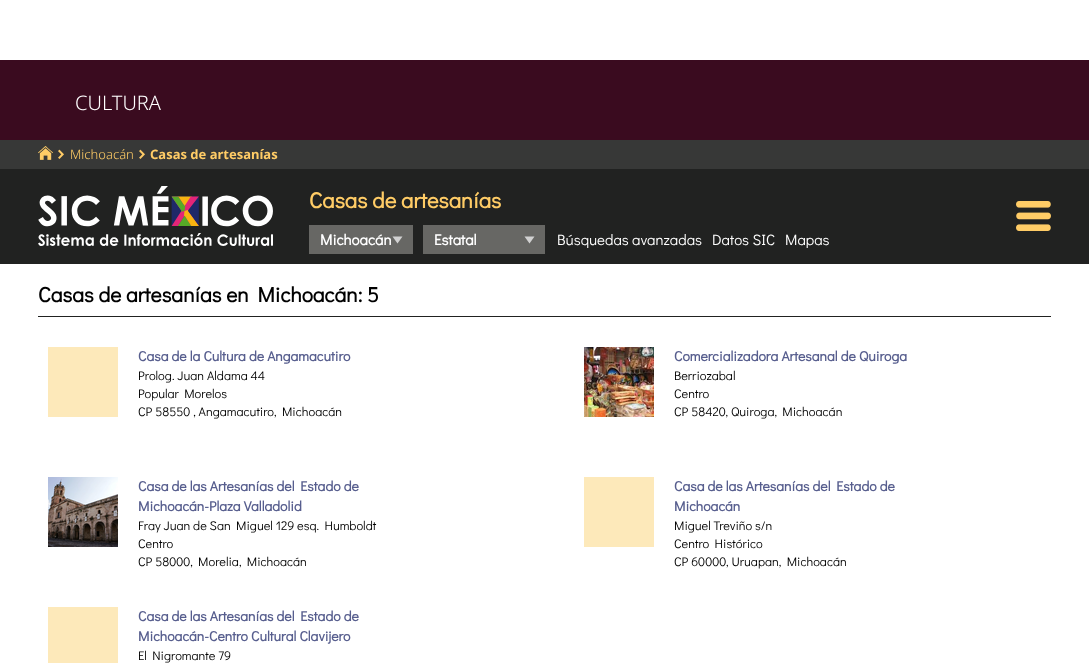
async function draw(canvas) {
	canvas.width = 1089;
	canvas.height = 663;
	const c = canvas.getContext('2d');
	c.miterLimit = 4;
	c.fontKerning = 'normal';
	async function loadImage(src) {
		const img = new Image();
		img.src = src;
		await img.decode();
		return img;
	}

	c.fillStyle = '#fff';
	c.fillRect(0, 0, 1089, 663);
	c.fillStyle = '#3a0b1f';
	c.fillRect(0, 60, 1089, 80);
	c.font = '300 20px Noto Sans';
	c.fillStyle = '#fff';
	c.fillText('CULTURA', 75, 110);
	c.fillStyle = '#373837';
	c.fillRect(0, 140, 1089, 29);
	c.drawImage(await loadImage('img1.png'), 38, 146, 15, 14);
	c.drawImage(await loadImage('img2.png'), 58, 149, 6, 10);
	c.font = '300 13px Noto Sans';
	c.fillStyle = '#fc6';
	c.fillText('Michoacán', 70, 159);
	c.drawImage(await loadImage('img2.png'), 139, 149, 6, 10);
	c.font = 'bold 13px Noto Sans';
	c.fillText('Casas de artesanías', 150, 159);
	c.fillStyle = '#212221';
	c.fillRect(0, 169, 1089, 95);
	c.drawImage(await loadImage('img3.png'), 38, 186, 235, 60);
	c.font = 'bold 22px Didact Gothic';
	c.fillStyle = '#fc6';
	c.fillText('Casas de artesanías', 309, 208);
	c.fillStyle = '#676764';
	c.fillRect(309, 225, 104, 29);
	c.fillStyle = '#d1d1d1';
	c.beginPath();
	c.moveTo(392.5, 236.5);
	c.lineTo(397.5, 243.5);
	c.lineTo(402.5, 236.5);
	c.closePath();
	c.fill();
	c.font = 'bold 15px Didact Gothic';
	c.fillStyle = '#fff';
	c.fillText('Michoacán', 320, 245);
	c.fillStyle = '#676764';
	c.fillRect(423, 225, 122, 29);
	c.fillStyle = '#d1d1d1';
	c.beginPath();
	c.moveTo(524.5, 236.5);
	c.lineTo(529.5, 243.5);
	c.lineTo(534.5, 236.5);
	c.closePath();
	c.fill();
	c.fillStyle = '#fff';
	c.fillText('Estatal', 434, 245);
	c.font = '15px Didact Gothic';
	for (const [text, x, y] of [
		['Búsquedas avanzadas', 557, 245],
		['Datos SIC', 712, 245],
		['Mapas', 785, 245],
	]) {
		c.fillText(text, x, y);
	}
	c.drawImage(await loadImage('img4.png'), 1016, 201, 35, 30);
	c.font = 'bold 21px Didact Gothic';
	c.fillStyle = '#000';
	c.fillText('Casas de artesanías en Michoacán: 5', 38, 302);
	c.fillStyle = '#212221';
	c.fillRect(38, 316, 1013, 1);
	c.fillStyle = '#fde9ba';
	c.fillRect(48, 347, 70, 70);
	c.font = 'bold 13.9px Didact Gothic';
	c.fillStyle = '#575e8e';
	c.fillText('Casa de la Cultura de Angamacutiro', 138, 361);
	c.font = '12.6px Didact Gothic';
	c.fillStyle = '#000';
	for (const [text, x, y] of [
		['Prolog. Juan Aldama 44', 138, 380],
		['Popular Morelos', 138, 398],
		['CP 58550 , Angamacutiro, Michoacán', 138, 416],
	]) {
		c.fillText(text, x, y);
	}
	c.drawImage(await loadImage('img5.png'), 584, 347, 70, 70);
	c.font = 'bold 13.9px Didact Gothic';
	c.fillStyle = '#575e8e';
	c.fillText('Comercializadora Artesanal de Quiroga', 674, 361);
	c.font = '12.6px Didact Gothic';
	c.fillStyle = '#000';
	for (const [text, x, y] of [
		['Berriozabal', 674, 380],
		['Centro', 674, 398],
		['CP 58420, Quiroga, Michoacán', 674, 416],
	]) {
		c.fillText(text, x, y);
	}
	c.drawImage(await loadImage('img6.png'), 48, 477, 70, 70);
	c.font = 'bold 13.9px Didact Gothic';
	c.fillStyle = '#575e8e';
	c.fillText('Casa de las Artesanías del Estado de', 138, 491);
	c.fillText('Michoacán-Plaza Valladolid', 138, 511);
	c.font = '12.6px Didact Gothic';
	c.fillStyle = '#000';
	for (const [text, x, y] of [
		['Fray Juan de San Miguel 129 esq. Humboldt', 138, 530],
		['Centro', 138, 548],
		['CP 58000, Morelia, Michoacán', 138, 566],
	]) {
		c.fillText(text, x, y);
	}
	c.fillStyle = '#fde9ba';
	c.fillRect(584, 477, 70, 70);
	c.font = 'bold 13.9px Didact Gothic';
	c.fillStyle = '#575e8e';
	c.fillText('Casa de las Artesanías del Estado de', 674, 491);
	c.fillText('Michoacán', 674, 511);
	c.font = '12.6px Didact Gothic';
	c.fillStyle = '#000';
	for (const [text, x, y] of [
		['Miguel Treviño s/n', 674, 530],
		['Centro Histórico', 674, 548],
		['CP 60000, Uruapan, Michoacán', 674, 566],
	]) {
		c.fillText(text, x, y);
	}
	c.fillStyle = '#fde9ba';
	c.fillRect(48, 607, 70, 56);
	c.font = 'bold 13.9px Didact Gothic';
	c.fillStyle = '#575e8e';
	c.fillText('Casa de las Artesanías del Estado de', 138, 621);
	c.fillText('Michoacán-Centro Cultural Clavijero', 138, 641);
	c.font = '12.6px Didact Gothic';
	c.fillStyle = '#000';
	c.fillText('El Nigromante 79', 138, 660);
}

draw(document.querySelector('canvas'));
